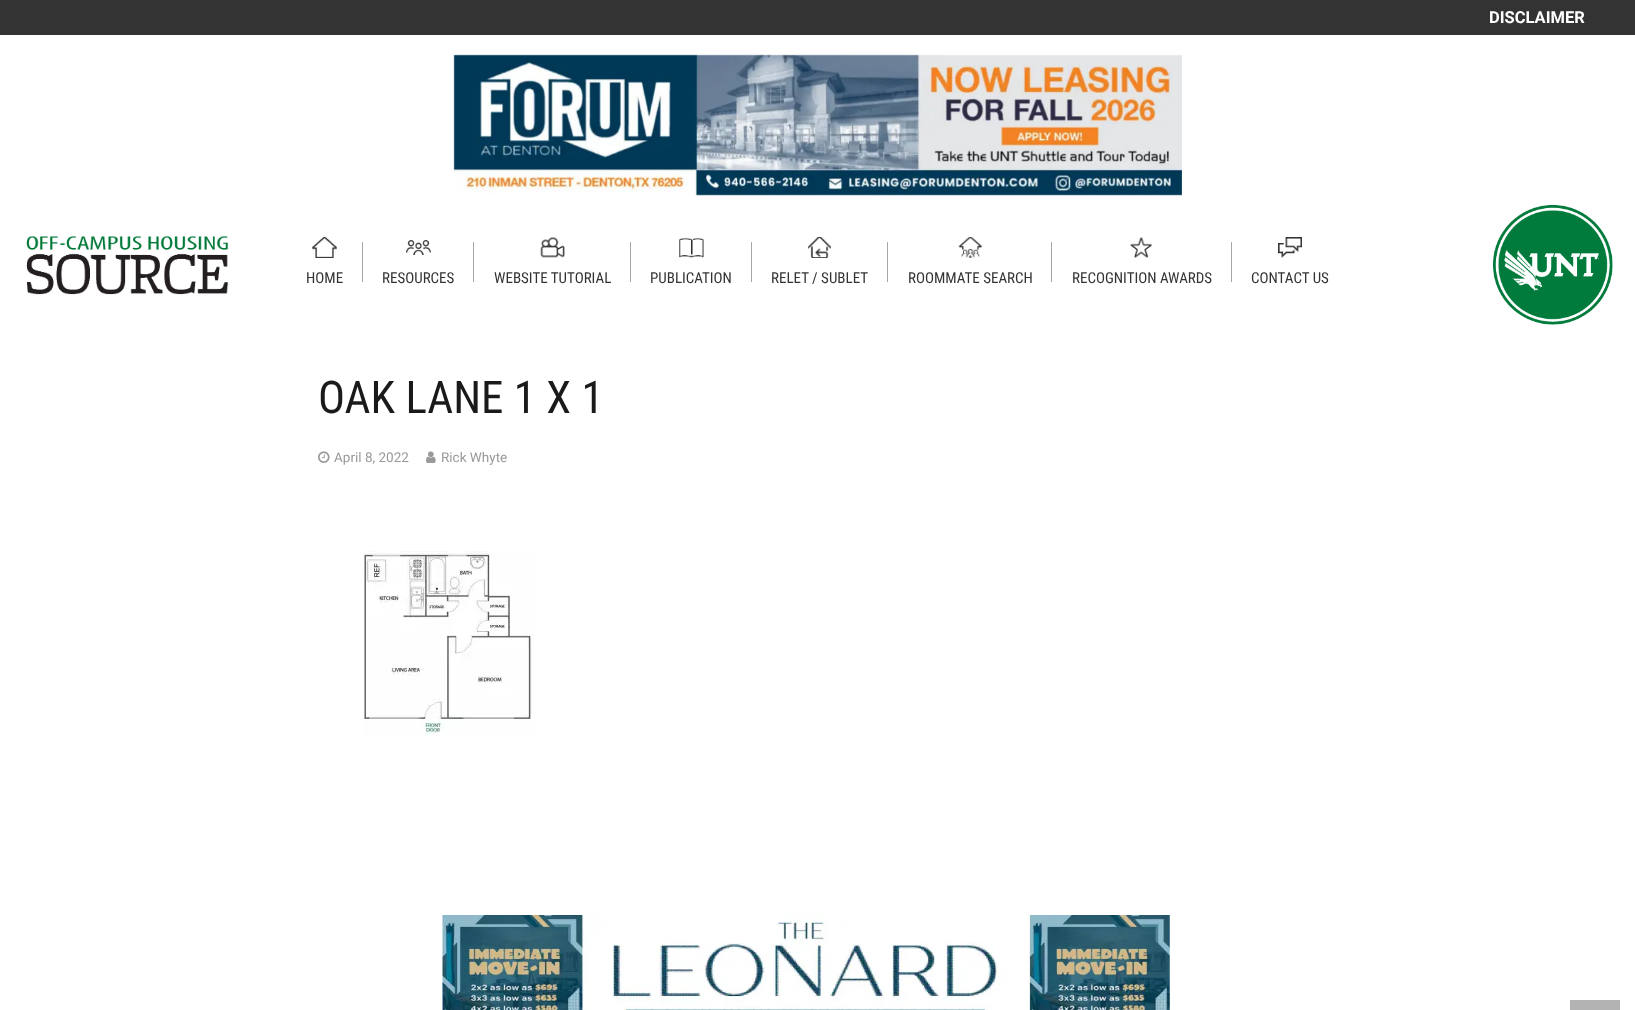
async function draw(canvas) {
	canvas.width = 1635;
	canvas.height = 1010;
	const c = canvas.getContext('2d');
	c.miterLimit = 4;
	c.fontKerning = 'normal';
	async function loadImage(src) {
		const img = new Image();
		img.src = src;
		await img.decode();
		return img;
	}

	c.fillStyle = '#fff';
	c.fillRect(0, 0, 1635, 1010);
	c.fillStyle = '#333';
	c.fillRect(0, 0, 1635, 35);
	c.font = 'bold 16.5px Roboto';
	c.fillStyle = '#fff';
	c.fillText('DISCLAIMER', 1489, 23);
	c.drawImage(await loadImage('img1.png'), 453, 54, 729, 142);
	c.drawImage(await loadImage('img2.png'), 26, 236, 203, 59);
	c.drawImage(await loadImage('img3.png'), 312, 237, 25, 21);
	c.fillStyle = '#a7a7a7';
	c.fillRect(362, 242, 1, 40);
	c.font = '15px Roboto Condensed';
	c.fillStyle = '#333';
	c.fillText('HOME', 306, 283);
	c.drawImage(await loadImage('img4.png'), 406, 240, 25, 15);
	c.fillStyle = '#a7a7a7';
	c.fillRect(473, 242, 1, 40);
	c.fillStyle = '#333';
	c.fillText('RESOURCES', 382, 283);
	c.drawImage(await loadImage('img5.png'), 540, 237, 25, 21);
	c.fillStyle = '#a7a7a7';
	c.fillRect(630, 242, 1, 40);
	c.fillStyle = '#333';
	c.fillText('WEBSITE TUTORIAL', 494, 283);
	c.drawImage(await loadImage('img6.png'), 679, 237, 25, 21);
	c.fillStyle = '#a7a7a7';
	c.fillRect(751, 242, 1, 40);
	c.fillStyle = '#333';
	c.fillText('PUBLICATION', 650, 283);
	c.drawImage(await loadImage('img7.png'), 808, 237, 23, 21);
	c.fillStyle = '#a7a7a7';
	c.fillRect(887, 242, 1, 40);
	c.fillStyle = '#333';
	c.fillText('RELET / SUBLET', 771, 283);
	c.drawImage(await loadImage('img8.png'), 958, 237, 24, 21);
	c.fillStyle = '#a7a7a7';
	c.fillRect(1051, 242, 1, 40);
	c.fillStyle = '#333';
	c.fillText('ROOMMATE SEARCH', 908, 283);
	c.drawImage(await loadImage('img9.png'), 1130, 237, 22, 21);
	c.fillStyle = '#a7a7a7';
	c.fillRect(1231, 242, 1, 40);
	c.fillStyle = '#333';
	c.fillText('RECOGNITION AWARDS', 1072, 283);
	c.drawImage(await loadImage('img10.png'), 1278, 237, 24, 21);
	c.fillText('CONTACT US', 1251, 283);
	c.drawImage(await loadImage('img11.png'), 1493, 205, 120, 120);
	c.font = '45px Roboto Condensed';
	c.fillStyle = '#1a1a1a';
	c.fillText('OAK LANE 1 X 1', 318, 413);
	c.drawImage(await loadImage('img12.png'), 318, 451, 12, 12);
	c.font = '13.5px Roboto';
	c.fillStyle = '#999';
	c.fillText('April 8, 2022', 334, 462);
	c.drawImage(await loadImage('img13.png'), 426, 451, 10, 12);
	c.fillText('Rick Whyte', 441, 462);
	c.drawImage(await loadImage('img14.png'), 364, 551, 170, 185);
	c.drawImage(await loadImage('img15.png'), 442, 915, 728, 95);
	c.fillStyle = '#b3b3b3';
	c.fillRect(1570, 1000, 50, 10);
}

draw(document.querySelector('canvas'));
